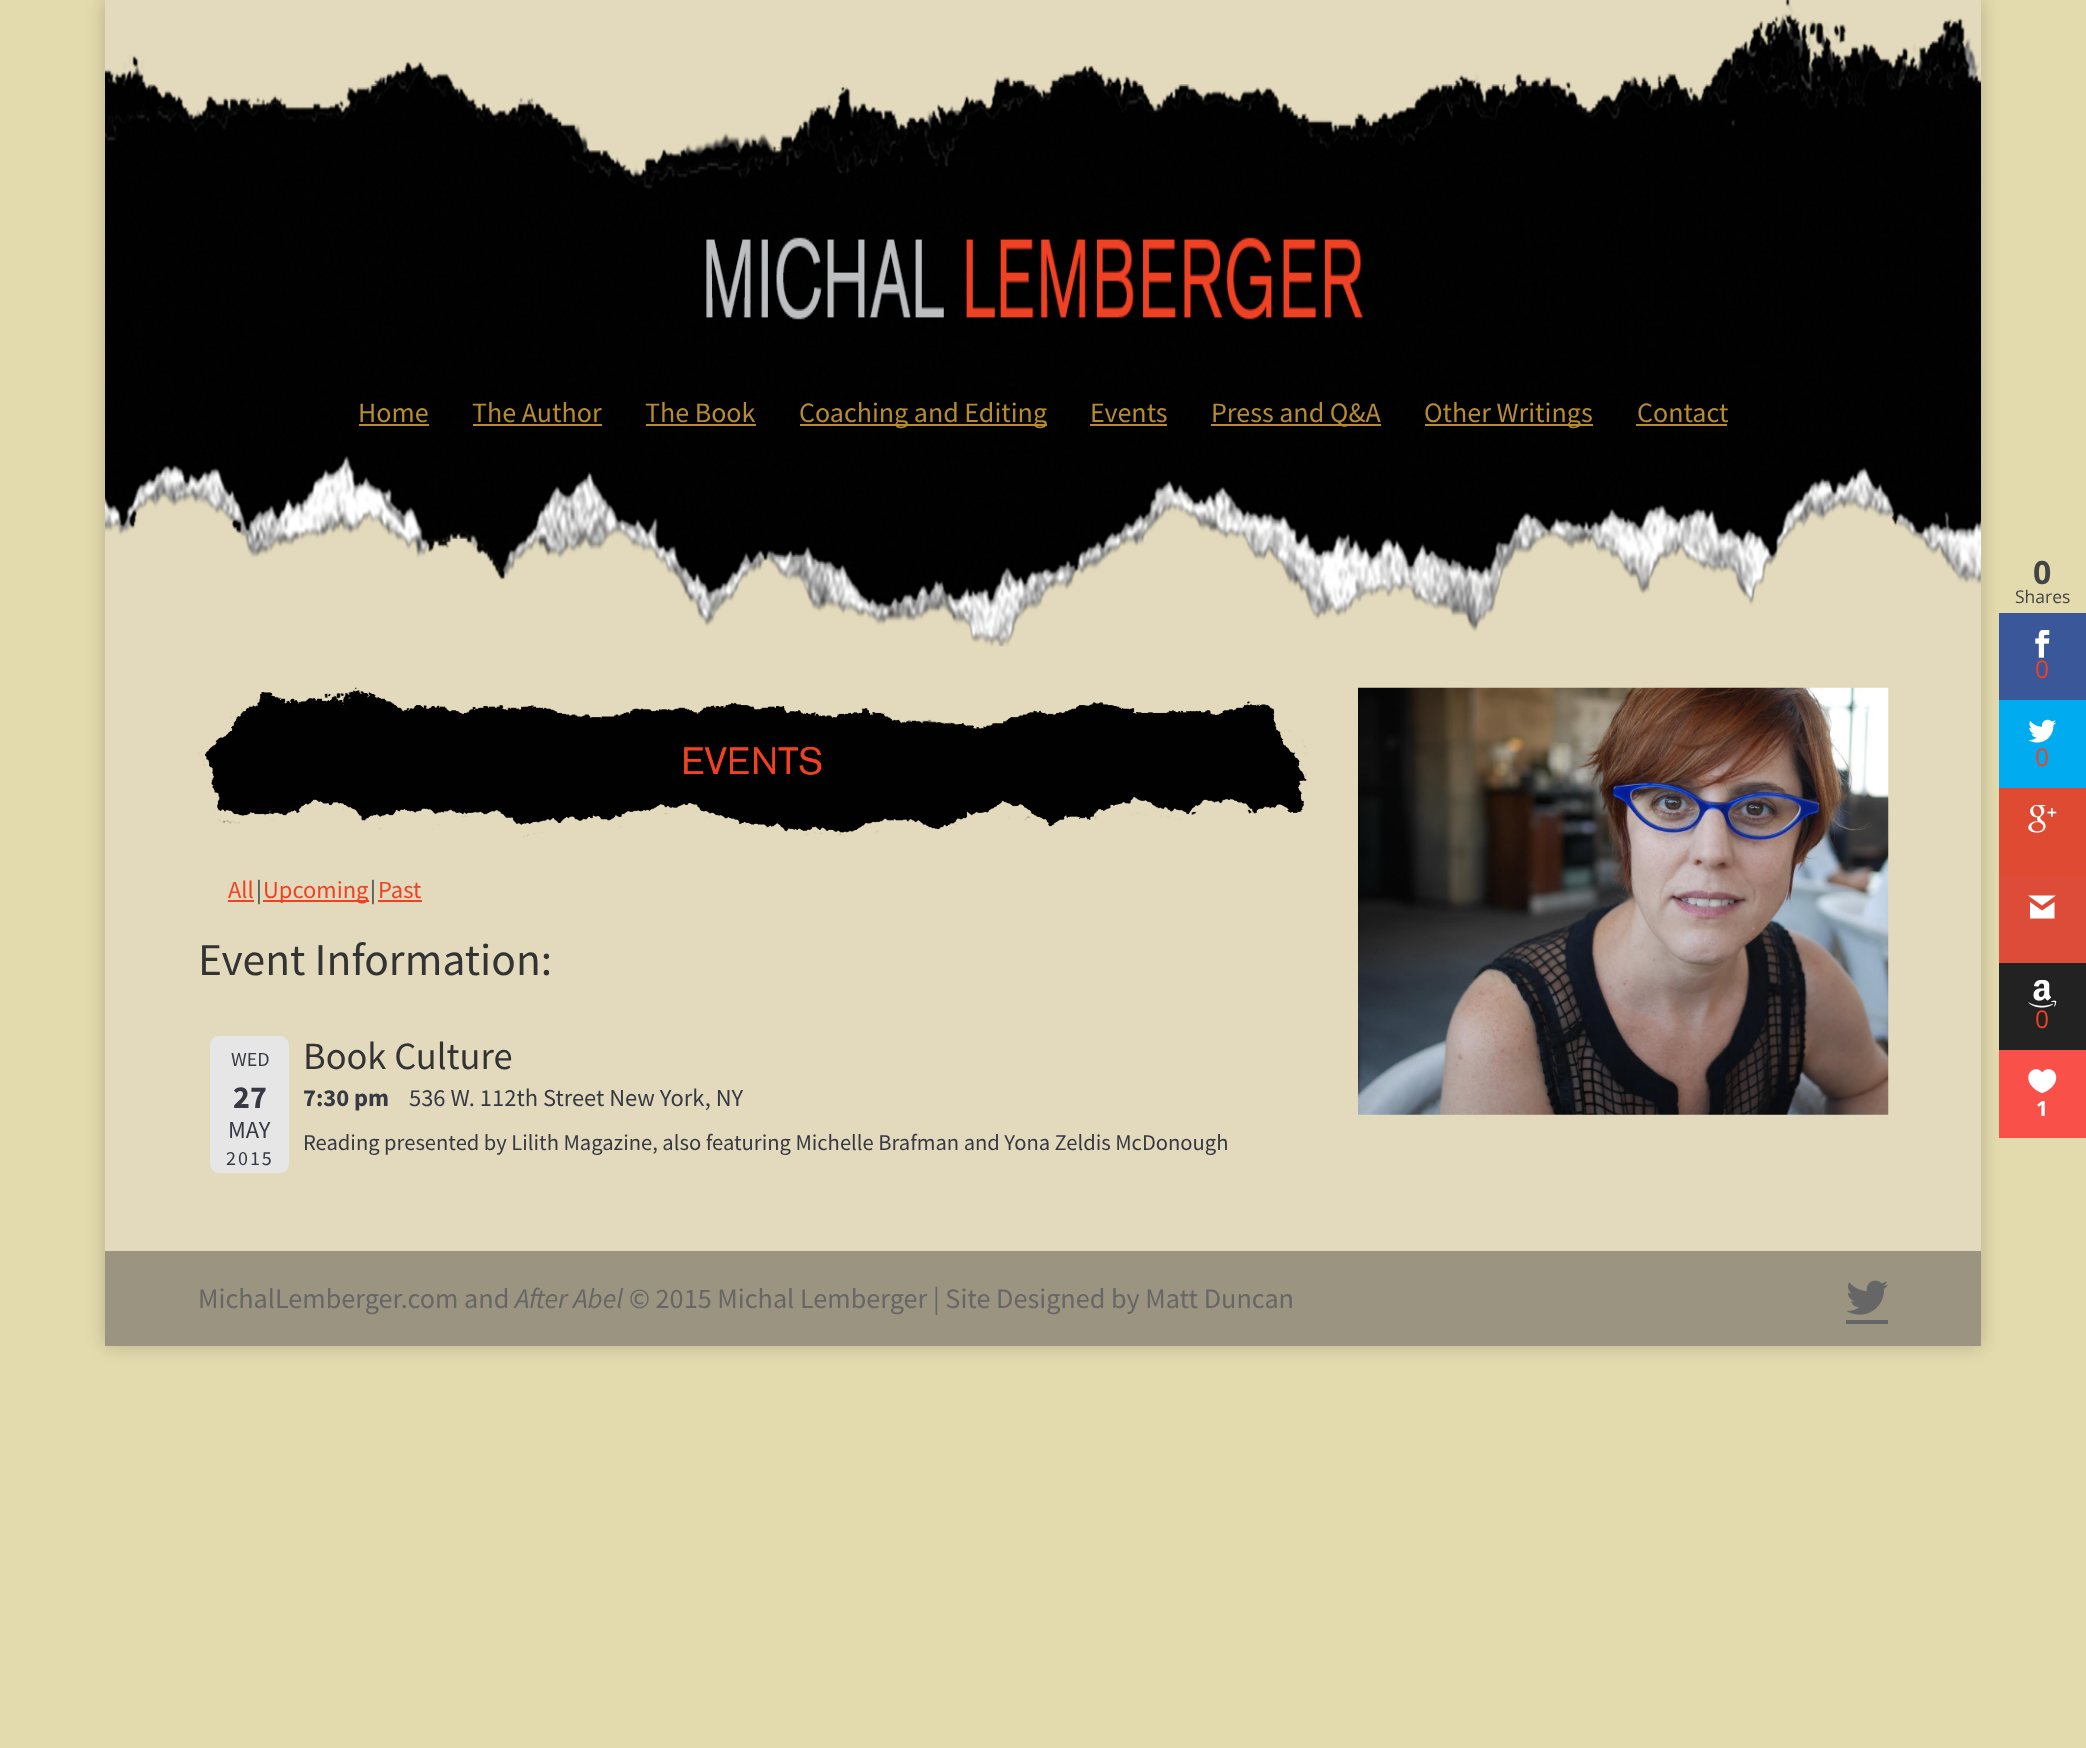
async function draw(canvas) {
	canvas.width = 2086;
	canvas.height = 1748;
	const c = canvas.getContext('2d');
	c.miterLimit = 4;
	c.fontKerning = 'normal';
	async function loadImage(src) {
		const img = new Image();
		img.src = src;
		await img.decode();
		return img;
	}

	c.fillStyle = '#e3daad';
	c.fillRect(0, 0, 2086, 1748);
	c.fillStyle = '#00000033';
	c.filter = 'blur(9px)';
	c.beginPath();
	c.rect(105, 0, 1876, 1346);
	c.fill();
	c.filter = 'none';
	c.fillStyle = '#e3dabd';
	c.fillRect(105, 0, 1876, 1251);
	c.drawImage(await loadImage('img1.png'), 105, 0, 1876, 647);
	c.font = '28px Source Sans Pro';
	c.fillStyle = '#b68b32';
	c.fillText('Home', 358, 422);
	c.fillRect(359, 424, 70, 2);
	c.fillText('The Author', 472, 422);
	c.fillRect(473, 424, 129, 2);
	c.fillText('The Book', 645, 422);
	c.fillRect(646, 424, 110, 2);
	c.fillRect(800, 424, 247, 2);
	c.fillText('Coaching and Editing', 799, 422);
	c.fillText('Events', 1090, 422);
	c.fillRect(1090, 424, 77, 2);
	c.fillRect(1211, 424, 170, 2);
	c.fillText('Press and Q&A', 1211, 422);
	c.fillRect(1425, 424, 168, 2);
	c.fillText('Other Writings', 1424, 422);
	c.fillText('Contact', 1637, 422);
	c.fillRect(1636, 424, 91, 2);
	c.drawImage(await loadImage('img2.png'), 198, 687, 1109, 151);
	c.font = '24.5px Source Sans Pro';
	c.fillStyle = '#ef4123';
	c.fillText('All', 228, 898);
	c.fillRect(228, 900, 26, 2);
	c.fillStyle = '#363942';
	c.fillText('|', 256, 898);
	c.fillStyle = '#ef4123';
	c.fillRect(263, 900, 106, 2);
	c.fillText('Upcoming', 263, 898);
	c.fillStyle = '#363942';
	c.fillText('|', 370, 898);
	c.fillStyle = '#ef4123';
	c.fillText('Past', 378, 898);
	c.fillRect(378, 900, 44, 2);
	c.font = '45.5px Source Sans Pro';
	c.fillStyle = '#333';
	c.fillText('Event Information:', 198, 975);
	c.fillStyle = '#e6e6e6';
	c.beginPath();
	c.roundRect(210, 1036, 79, 137, 9);
	c.fill();
	c.font = '20px Source Sans Pro';
	c.fillStyle = '#363942';
	c.fillText('WED', 231, 1066);
	c.font = 'bold 32px Source Sans Pro';
	c.fillText('27', 233, 1108);
	c.font = '24.5px Source Sans Pro';
	c.fillText('MAY', 228, 1138);
	c.letterSpacing = '2px';
	c.font = '20px Source Sans Pro';
	c.fillText('2015', 226, 1165);
	c.letterSpacing = '0px';
	c.font = '38.5px Source Sans Pro';
	c.fillStyle = '#333';
	c.fillText('Book Culture', 303, 1069);
	c.font = 'bold 24.5px Source Sans Pro';
	c.fillStyle = '#363942';
	c.fillText('7:30 pm', 303, 1106);
	c.font = '24.5px Source Sans Pro';
	c.fillText('536 W. 112th Street New York, NY', 409, 1106);
	c.font = '22.55px Source Sans Pro';
	c.fillText('Reading presented by Lilith Magazine, also featuring Michelle Brafman and Yona Zeldis McDonough', 303, 1150);
	c.drawImage(await loadImage('img3.png'), 1358, 687, 531, 428);
	c.fillStyle = '#9b9480';
	c.fillRect(105, 1251, 1876, 95);
	c.font = '28.2px Source Sans Pro';
	c.fillStyle = '#666';
	c.fillText('MichalLemberger.com and', 198, 1308);
	c.font = 'italic 28.2px Source Sans Pro';
	c.fillText('After Abel', 515, 1308);
	c.font = '28.2px Source Sans Pro';
	c.fillText('© 2015 Michal Lemberger | Site Designed by Matt Duncan', 629, 1308);
	c.drawImage(await loadImage('img4.png'), 1847, 1280, 41, 35);
	c.fillRect(1846, 1320, 42, 4);
	c.font = 'bold 32px Open Sans';
	c.fillStyle = '#444';
	c.fillText('0', 2033, 584);
	c.font = '17.5px Open Sans';
	c.fillText('Shares', 2015, 603);
	c.fillStyle = '#3a579a';
	c.fillRect(1999, 613, 87, 87);
	c.drawImage(await loadImage('img5.png'), 2035, 630, 15, 28);
	c.font = '24.5px Open Sans';
	c.fillStyle = '#ef4123';
	c.fillText('0', 2035, 678);
	c.fillStyle = '#00abf0';
	c.fillRect(1999, 700, 87, 88);
	c.drawImage(await loadImage('img6.png'), 2028, 719, 29, 24);
	c.fillStyle = '#ef4123';
	c.fillText('0', 2035, 766);
	c.fillStyle = '#df4a32';
	c.fillRect(1999, 788, 87, 87);
	c.drawImage(await loadImage('img7.png'), 2028, 805, 29, 28);
	c.fillStyle = '#dd4b39';
	c.fillRect(1999, 875, 87, 88);
	c.fillStyle = '#fff';
	c.beginPath();
	c.moveTo(2056, 895.5);
	c.lineTo(2028, 895.5);
	c.lineTo(2042, 905.5);
	c.closePath();
	c.moveTo(2042, 910.5);
	c.lineTo(2030, 902);
	c.lineTo(2030, 918.5);
	c.lineTo(2054.5, 918.5);
	c.lineTo(2054.5, 902);
	c.closePath();
	c.fill();
	c.fillStyle = '#222';
	c.fillRect(1999, 963, 87, 87);
	c.drawImage(await loadImage('img8.png'), 2028, 980, 29, 28);
	c.fillStyle = '#ef4123';
	c.fillText('0', 2035, 1028);
	c.fillStyle = '#f95149';
	c.fillRect(1999, 1050, 87, 88);
	c.drawImage(await loadImage('img9.png'), 2028, 1069, 29, 25);
	c.font = 'bold 21px Open Sans';
	c.fillStyle = '#fff';
	c.fillText('1', 2036, 1116);
}

draw(document.querySelector('canvas'));
